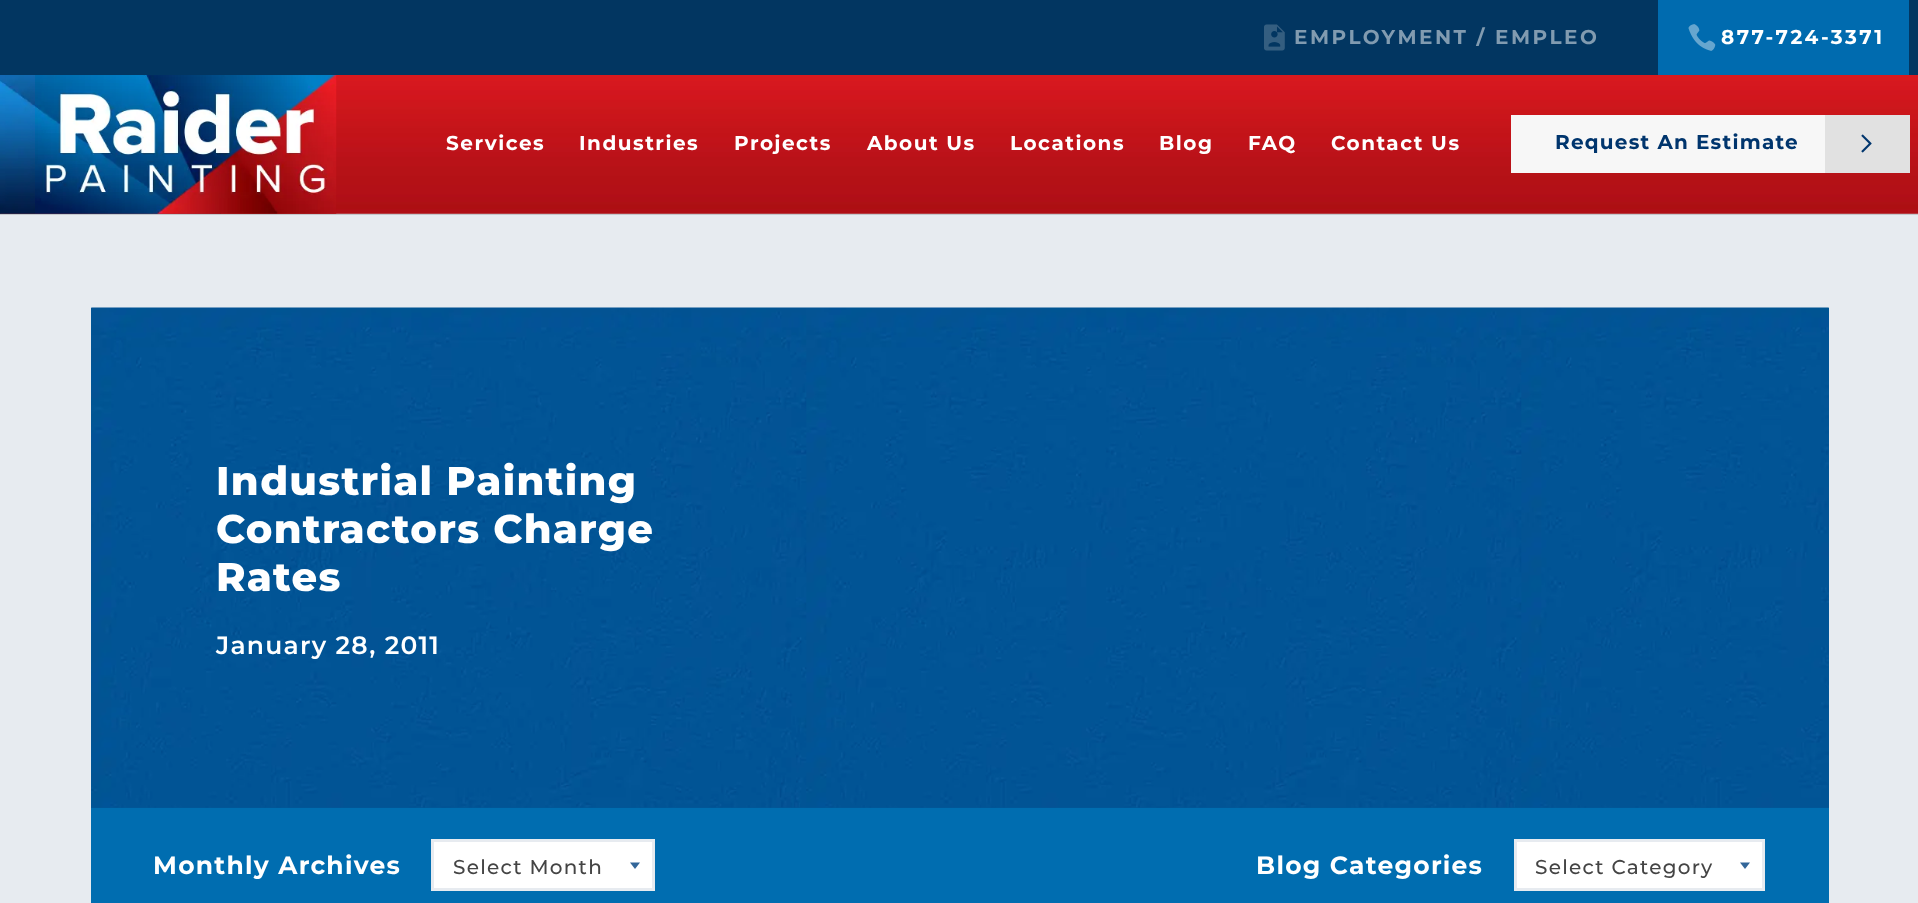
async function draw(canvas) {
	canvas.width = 1918;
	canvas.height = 903;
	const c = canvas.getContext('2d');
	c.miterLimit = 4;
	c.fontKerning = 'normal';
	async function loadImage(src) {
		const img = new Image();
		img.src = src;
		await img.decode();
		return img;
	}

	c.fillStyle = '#e7ebf0';
	c.fillRect(0, 0, 1918, 903);
	c.fillStyle = '#00000026';
	c.filter = 'blur(0.5px)';
	c.beginPath();
	c.rect(0, 1, 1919, 214);
	c.fill();
	c.filter = 'none';
	c.drawImage(await loadImage('img1.png'), 0, 75, 1918, 139);
	c.strokeStyle = '#023661';
	c.lineWidth = 0.2;
	c.strokeRect(0.1, 74.1, 220.8, 139.8);
	c.drawImage(await loadImage('img2.png'), 0, 75, 35, 139);
	c.drawImage(await loadImage('img3.png'), 35, 75, 302, 139);
	c.fillStyle = '#023661';
	c.fillRect(0, 0, 1918, 75);
	c.drawImage(await loadImage('img4.png'), 1264, 24, 21, 27);
	c.letterSpacing = '2.5px';
	c.font = 'bold 20px Montserrat';
	c.fillStyle = '#819bb0';
	c.fillText('EMPLOYMENT / EMPLEO', 1294, 44);
	c.fillStyle = '#006baf';
	c.fillRect(1658, 0, 251, 75);
	c.drawImage(await loadImage('img5.png'), 1688, 24, 28, 27);
	c.fillStyle = '#fff';
	c.fillText('877-724-3371', 1721, 44);
	c.letterSpacing = '1.5px';
	for (const [text, x, y] of [
		['Services', 446, 150],
		['Industries', 579, 150],
		['Projects', 734, 150],
		['About Us', 867, 150],
		['Locations', 1010, 150],
		['Blog', 1159, 150],
		['FAQ', 1248, 150],
		['Contact Us', 1331, 150],
	]) {
		c.fillText(text, x, y);
	}
	c.fillStyle = '#f7f7f7';
	c.fillRect(1511, 115, 314, 58);
	c.letterSpacing = '1.25px';
	c.fillStyle = '#00356d';
	c.fillText('Request An Estimate', 1555, 149);
	c.fillStyle = '#e1e1e1';
	c.fillRect(1825, 115, 85, 58);
	c.drawImage(await loadImage('img6.png'), 1861, 134, 11, 19);
	c.fillStyle = '#015899';
	c.fillRect(91, 308, 1738, 500);
	c.drawImage(await loadImage('img7.png'), 91, 307, 1738, 501);
	c.font = '800 40px Montserrat';
	c.fillStyle = '#fff';
	for (const [text, x, y] of [
		['Industrial Painting', 216, 495],
		['Contractors Charge', 216, 543],
		['Rates', 216, 591],
	]) {
		c.fillText(text, x, y);
	}
	c.font = '600 25px Montserrat';
	c.fillText('January 28, 2011', 216, 654);
	c.fillStyle = '#006db0';
	c.fillRect(91, 808, 1738, 95);
	c.font = 'bold 25px Montserrat';
	c.fillStyle = '#fff';
	c.fillText('Monthly Archives', 153, 874);
	c.beginPath();
	c.rect(432.5, 840.5, 221, 49);
	c.fill();
	c.strokeStyle = '#e7ebf0';
	c.lineWidth = 3;
	c.stroke();
	c.font = '500 20px Montserrat';
	c.fillStyle = '#444';
	c.fillText('Select Month', 453, 874);
	c.fillStyle = '#369';
	c.beginPath();
	c.moveTo(630, 862.5);
	c.lineTo(640, 862.5);
	c.lineTo(635, 869);
	c.closePath();
	c.fill();
	c.font = 'bold 25px Montserrat';
	c.fillStyle = '#fff';
	c.fillText('Blog Categories', 1256, 874);
	c.beginPath();
	c.rect(1515.5, 840.5, 248, 49);
	c.fill();
	c.stroke();
	c.font = '500 20px Montserrat';
	c.fillStyle = '#444';
	c.fillText('Select Category', 1535, 874);
	c.fillStyle = '#369';
	c.beginPath();
	c.moveTo(1740, 862.5);
	c.lineTo(1750, 862.5);
	c.lineTo(1745, 869);
	c.closePath();
	c.fill();
}

draw(document.querySelector('canvas'));
